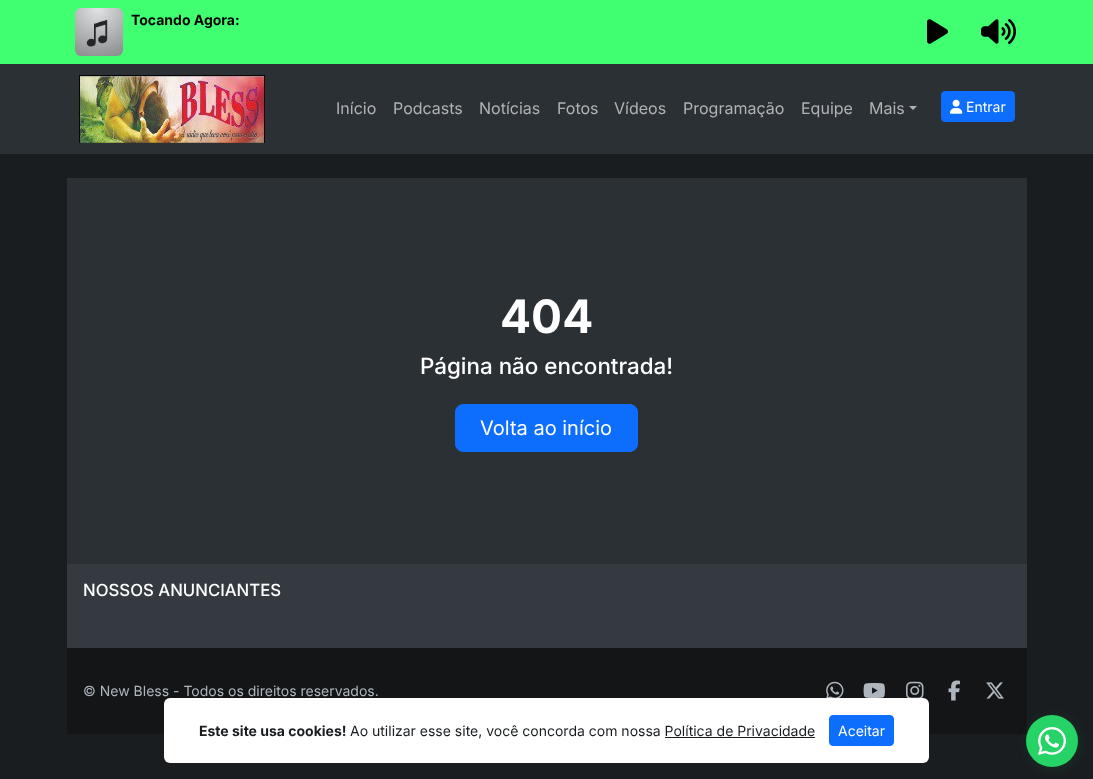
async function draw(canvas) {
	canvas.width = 1093;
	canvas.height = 779;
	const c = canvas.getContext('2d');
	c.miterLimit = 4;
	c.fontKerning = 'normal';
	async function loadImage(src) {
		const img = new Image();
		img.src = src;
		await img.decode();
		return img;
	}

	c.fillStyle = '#1a1d20';
	c.fillRect(0, 0, 1093, 779);
	c.fillStyle = '#40ff70';
	c.fillRect(0, 0, 1093, 64);
	c.drawImage(await loadImage('img1.png'), 75, 8, 48, 48);
	c.font = 'bold 14px Inter';
	c.fillStyle = '#000';
	c.fillText('Tocando Agora:', 131, 25);
	c.drawImage(await loadImage('img2.png'), 927, 19, 21, 25);
	c.drawImage(await loadImage('img3.png'), 981, 19, 35, 25);
	c.fillStyle = '#2b3035';
	c.fillRect(0, 64, 1093, 90);
	c.drawImage(await loadImage('img4.png'), 79, 75, 186, 68);
	c.font = '16px Inter';
	c.fillStyle = '#b0b3b5';
	for (const [text, x, y] of [
		['Início', 336, 114],
		['Podcasts', 393, 114],
		['Notícias', 479, 114],
		['Fotos', 557, 114],
		['Vídeos', 614, 114],
		['Programação', 683, 114],
		['Equipe', 801, 114],
		['Mais', 869, 114],
	]) {
		c.fillText(text, x, y);
	}
	c.beginPath();
	c.moveTo(909, 106);
	c.lineTo(917, 106);
	c.lineTo(913, 110);
	c.closePath();
	c.fill();
	c.fillStyle = '#0d6efd';
	c.beginPath();
	c.roundRect(941.5, 91.5, 73, 30, 3.5);
	c.fill();
	c.strokeStyle = '#0d6efd';
	c.stroke();
	c.drawImage(await loadImage('img5.png'), 950, 99, 13, 15);
	c.font = '14px Inter';
	c.fillStyle = '#fff';
	c.fillText('Entrar', 966, 112);
	c.fillStyle = '#2b3035';
	c.fillRect(67, 178, 960, 386);
	c.font = 'bold 46px Inter';
	c.fillStyle = '#fff';
	c.fillText('404', 500, 333);
	c.font = '500 22.4px Inter';
	c.fillText('Página não encontrada!', 420, 374);
	c.fillStyle = '#0d6efd';
	c.beginPath();
	c.roundRect(455.5, 404.5, 182, 47, 7.5);
	c.fill();
	c.stroke();
	c.font = '20px Inter';
	c.fillStyle = '#fff';
	c.fillText('Volta ao início', 480, 435);
	c.fillStyle = '#343a40';
	c.fillRect(67, 564, 960, 84);
	c.font = '500 16.75px Inter';
	c.fillStyle = '#fff';
	c.fillText('NOSSOS ANUNCIANTES', 83, 596);
	c.fillStyle = '#131517';
	c.fillRect(67, 648, 960, 86);
	c.font = '14px Inter';
	c.fillStyle = '#adb5bd';
	c.fillText('© New Bless - Todos os direitos reservados.', 83, 696);
	c.drawImage(await loadImage('img6.png'), 826, 681, 18, 17);
	c.drawImage(await loadImage('img7.png'), 863, 683, 22, 15);
	c.drawImage(await loadImage('img8.png'), 906, 681, 18, 17);
	c.drawImage(await loadImage('img9.png'), 948, 680, 12, 21);
	c.drawImage(await loadImage('img10.png'), 986, 682, 18, 17);
	c.fillStyle = '#fff';
	c.beginPath();
	c.roundRect(164, 698, 765, 65, 6);
	c.fill();
	c.font = 'bold 14px Inter';
	c.fillStyle = '#1a1d20';
	c.fillText('Este site usa cookies!', 199, 736);
	c.font = '14px Inter';
	c.fillText('Ao utilizar esse site, você concorda com nossa Política de Privacidade', 350, 736);
	c.fillStyle = '#0d6efd';
	c.beginPath();
	c.roundRect(829.5, 715.5, 64, 30, 3.5);
	c.fill();
	c.stroke();
	c.fillStyle = '#fff';
	c.fillText('Aceitar', 838, 736);
	c.fillStyle = '#1a1d20';
	c.fillRect(665, 737, 150, 1);
	c.fillStyle = '#167c3c33';
	c.filter = 'blur(6px)';
	c.beginPath();
	c.roundRect(1028, 717, 52, 52, 26);
	c.fill();
	c.filter = 'none';
	c.fillStyle = '#25d366';
	c.beginPath();
	c.arc(1052, 741, 26, 0, 2 * Math.PI);
	c.fill();
	c.drawImage(await loadImage('img11.png'), 1038, 727, 28, 28);
}

draw(document.querySelector('canvas'));
